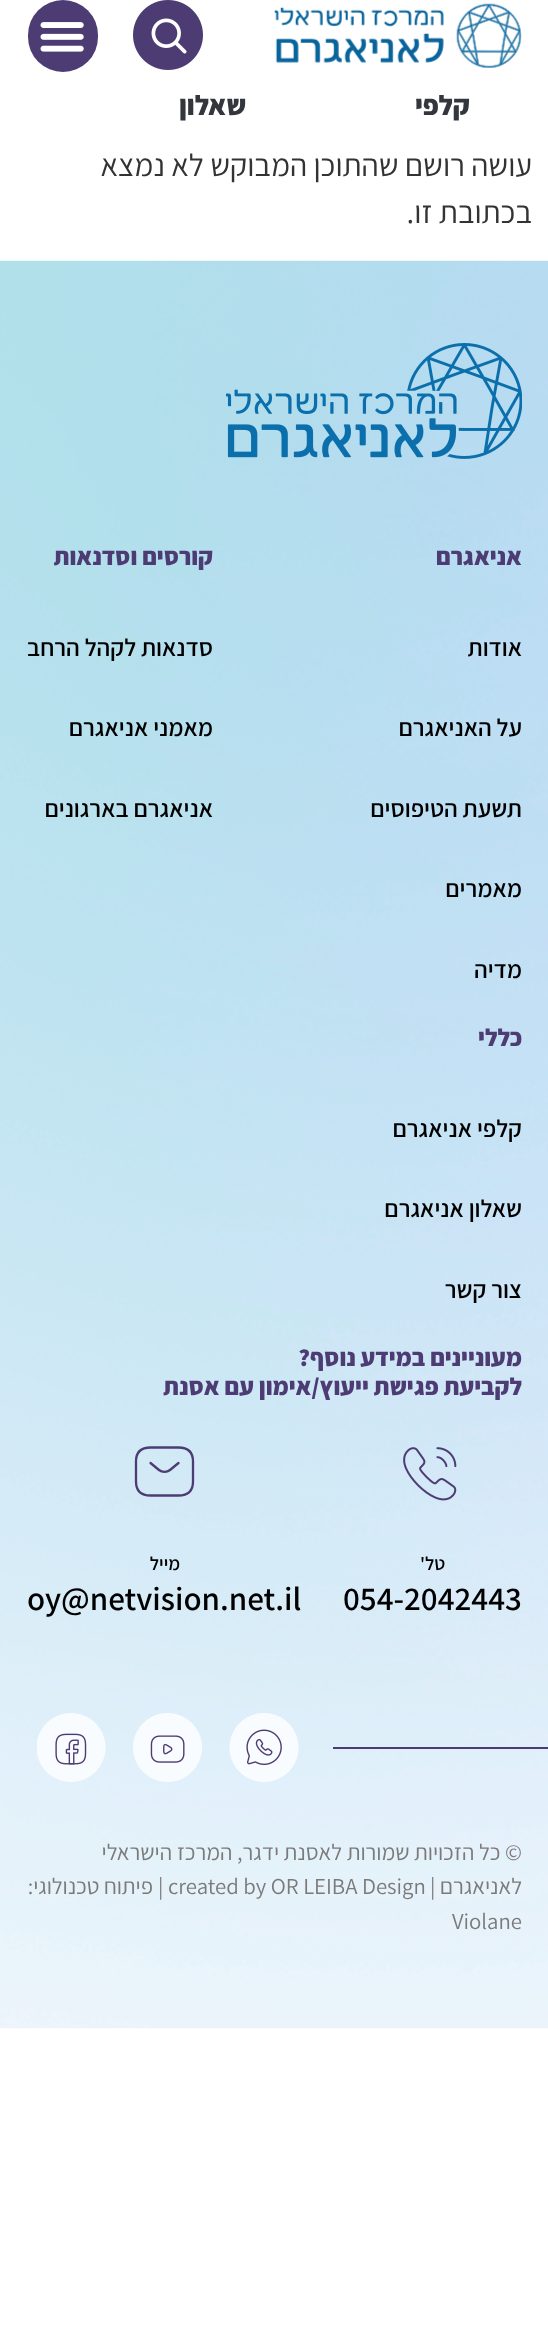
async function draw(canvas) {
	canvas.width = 548;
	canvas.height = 2333;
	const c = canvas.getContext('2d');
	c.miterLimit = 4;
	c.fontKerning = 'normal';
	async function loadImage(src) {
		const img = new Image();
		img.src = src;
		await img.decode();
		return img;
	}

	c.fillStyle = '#fff';
	c.fillRect(0, 0, 548, 2333);
	c.drawImage(await loadImage('img1.png'), 274, 3, 248, 65);
	c.drawImage(await loadImage('img2.png'), 133, 0, 70, 70);
	c.fillStyle = '#4d3c73';
	c.beginPath();
	c.roundRect(28, 0, 70, 72, 35);
	c.fill();
	c.drawImage(await loadImage('img3.png'), 40, 22, 44, 30);
	c.direction = 'rtl';
	c.font = '800 28px Assistant';
	c.fillStyle = '#33373d';
	c.fillText('קלפי', 470, 115);
	c.fillText('שאלון', 246, 115);
	c.font = '31.5px Assistant';
	c.fillStyle = '#333';
	c.fillText('עושה רושם שהתוכן המבוקש לא נמצא', 532, 176);
	c.fillText('בכתובת זו.', 532, 223);
	c.drawImage(await loadImage('img4.png'), 0, 260, 548, 1769);
	c.drawImage(await loadImage('img5.png'), 226, 343, 296, 116);
	c.font = '800 24.5px Assistant';
	c.fillStyle = '#4d3c73';
	c.fillText('אניאגרם', 522, 565);
	c.font = '600 24.5px Assistant';
	c.fillStyle = '#000';
	for (const [text, x, y] of [
		['אודות', 522, 656],
		['על האניאגרם', 522, 736],
		['תשעת הטיפוסים', 522, 817],
		['מאמרים', 522, 897],
		['מדיה', 522, 978],
	]) {
		c.fillText(text, x, y);
	}
	c.font = '800 24.5px Assistant';
	c.fillStyle = '#4d3c73';
	c.fillText('קורסים וסדנאות', 213, 565);
	c.font = '600 24.5px Assistant';
	c.fillStyle = '#000';
	for (const [text, x, y] of [
		['סדנאות לקהל הרחב', 213, 656],
		['מאמני אניאגרם', 213, 736],
		['אניאגרם בארגונים', 213, 817],
	]) {
		c.fillText(text, x, y);
	}
	c.font = '800 24.5px Assistant';
	c.fillStyle = '#4d3c73';
	c.fillText('כללי', 522, 1046);
	c.font = '600 24.5px Assistant';
	c.fillStyle = '#000';
	for (const [text, x, y] of [
		['קלפי אניאגרם', 522, 1137],
		['שאלון אניאגרם', 522, 1217],
		['צור קשר', 522, 1298],
	]) {
		c.fillText(text, x, y);
	}
	c.font = '800 24.5px Assistant';
	c.fillStyle = '#4d3c73';
	c.fillText('מעוניינים במידע נוסף?', 522, 1366);
	c.fillText('לקביעת פגישת ייעוץ/אימון עם אסנת', 522, 1395);
	c.drawImage(await loadImage('img6.png'), 403, 1447, 54, 54);
	c.font = '600 19px Assistant';
	c.fillStyle = '#000';
	c.fillText('טל\'', 445, 1570);
	c.direction = 'ltr';
	c.font = '600 33.25px Assistant';
	c.fillText('054-2042443', 343, 1610);
	c.beginPath();
	c.moveTo(178.5, 1495.5);
	c.lineTo(150.5, 1495.5);
	c.bezierCurveTo(142, 1495.5, 136, 1491.5, 136, 1481.5);
	c.lineTo(136, 1461.5);
	c.bezierCurveTo(136, 1451.5, 142, 1447.5, 150.5, 1447.5);
	c.lineTo(178.5, 1447.5);
	c.bezierCurveTo(187, 1447.5, 193, 1451.5, 193, 1461.5);
	c.lineTo(193, 1481.5);
	c.bezierCurveTo(193, 1491.5, 187, 1495.5, 178.5, 1495.5);
	c.closePath();
	c.moveTo(178.5, 1463);
	c.lineTo(170, 1470);
	c.bezierCurveTo(167, 1472.5, 162, 1472.5, 159, 1470);
	c.lineTo(150.5, 1463);
	c.strokeStyle = '#4d3c73';
	c.lineWidth = 2.3;
	c.lineCap = 'round';
	c.lineJoin = 'round';
	c.stroke();
	c.direction = 'rtl';
	c.font = '600 19px Assistant';
	c.fillText('מייל', 180, 1570);
	c.direction = 'ltr';
	c.font = '600 33.25px Assistant';
	c.fillText('oy@netvision.net.il', 27, 1610);
	c.fillStyle = '#4d3c73';
	c.fillRect(333, 1747, 215, 2);
	c.drawImage(await loadImage('img7.png'), 229, 1713, 70, 69);
	c.drawImage(await loadImage('img8.png'), 133, 1713, 69, 69);
	c.drawImage(await loadImage('img9.png'), 37, 1713, 69, 69);
	c.direction = 'rtl';
	c.font = '22.75px Assistant';
	c.fillStyle = '#7a7a7a';
	c.fillText('© כל הזכויות שמורות לאסנת ידגר, המרכז הישראלי', 522, 1860);
	c.fillText('לאניאגרם |', 522, 1894);
	c.direction = 'ltr';
	c.fillText('| created by OR LEIBA Design', 158, 1894);
	c.direction = 'rtl';
	c.fillText('פיתוח טכנולוגי:', 153, 1894);
	c.direction = 'ltr';
	c.fillText('Violane', 452, 1929);
}

draw(document.querySelector('canvas'));
